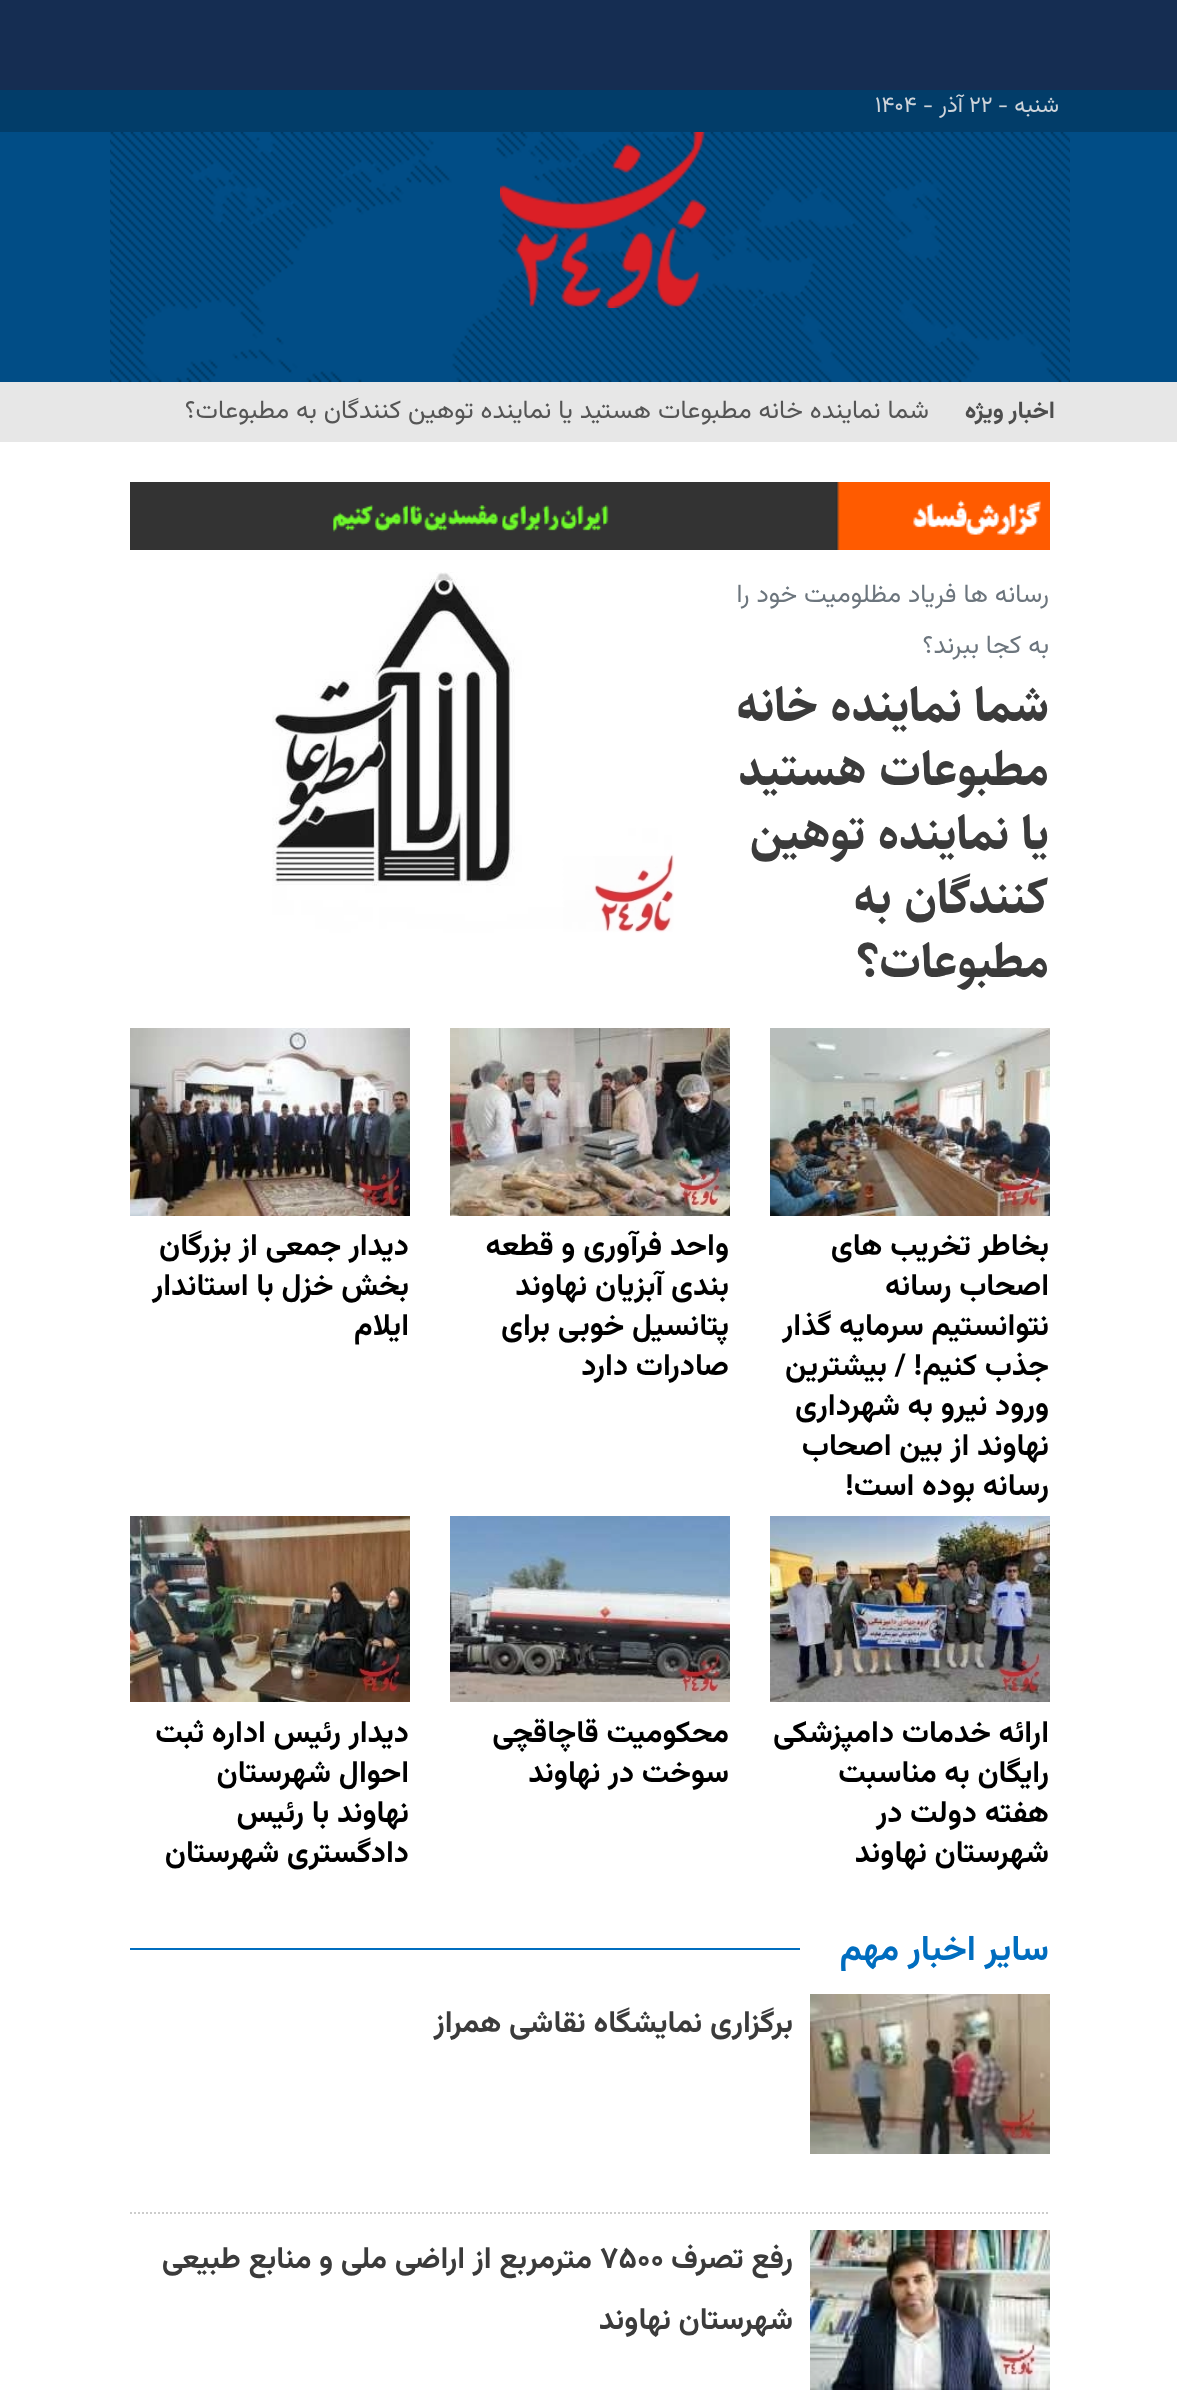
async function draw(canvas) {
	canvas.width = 1177;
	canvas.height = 2393;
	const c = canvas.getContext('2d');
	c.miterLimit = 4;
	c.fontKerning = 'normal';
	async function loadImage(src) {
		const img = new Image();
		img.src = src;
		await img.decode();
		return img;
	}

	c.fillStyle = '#fff';
	c.fillRect(0, 0, 1177, 2393);
	c.fillStyle = '#152d52';
	c.fillRect(0, 0, 1177, 90);
	c.fillStyle = '#023d69';
	c.fillRect(0, 90, 1177, 42);
	c.direction = 'rtl';
	c.font = '22.5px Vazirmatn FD';
	c.fillStyle = '#ced4da';
	c.fillText('شنبه -', 1059, 112);
	c.direction = 'ltr';
	c.fillText('۲۲', 969, 112);
	c.direction = 'rtl';
	c.fillText('آذر -', 963, 112);
	c.direction = 'ltr';
	c.fillText('۱۴۰۴', 875, 112);
	c.fillStyle = '#014d86';
	c.fillRect(0, 132, 1177, 250);
	c.drawImage(await loadImage('img1.png'), 110, 132, 960, 250);
	c.drawImage(await loadImage('img2.png'), 500, 132, 207, 176);
	c.fillStyle = '#e7e7e7';
	c.fillRect(0, 382, 1177, 60);
	c.wordSpacing = '-1px';
	c.direction = 'rtl';
	c.font = 'bold 24px Vazirmatn FD';
	c.fillStyle = '#4d4d4d';
	c.fillText('اخبار ویژه', 1055, 418);
	c.wordSpacing = '0px';
	c.font = '25.6px Vazirmatn FD';
	c.fillStyle = '#555';
	c.fillText('شما نماینده خانه مطبوعات هستید یا نماینده توهین کنندگان به مطبوعات؟', 929, 418);
	c.drawImage(await loadImage('img3.png'), 130, 482, 920, 68);
	c.fillStyle = '#6c757d';
	c.fillText('رسانه ها فریاد مظلومیت خود را', 1049, 602);
	c.fillText('به کجا ببرند؟', 1049, 653);
	c.font = 'bold 48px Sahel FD';
	c.fillStyle = '#3b3b3b';
	for (const [text, x, y] of [
		['شما نماینده خانه', 1049, 721],
		['مطبوعات هستید', 1049, 785],
		['یا نماینده توهین', 1049, 849],
		['کنندگان به', 1049, 913],
		['مطبوعات؟', 1049, 977],
	]) {
		c.fillText(text, x, y);
	}
	c.drawImage(await loadImage('img4.png'), 272, 572, 402, 361);
	c.drawImage(await loadImage('img5.png'), 770, 1028, 280, 188);
	c.font = 'bold 30.4px Vazirmatn FD';
	c.fillStyle = '#000';
	for (const [text, x, y] of [
		['بخاطر تخریب های', 1049, 1255],
		['اصحاب رسانه', 1049, 1295],
		['نتوانستیم سرمایه گذار', 1049, 1335],
		['جذب کنیم! / بیشترین', 1049, 1375],
		['ورود نیرو به شهرداری', 1049, 1415],
		['نهاوند از بین اصحاب', 1049, 1455],
		['رسانه بوده است!', 1049, 1495],
	]) {
		c.fillText(text, x, y);
	}
	c.drawImage(await loadImage('img6.png'), 450, 1028, 280, 188);
	for (const [text, x, y] of [
		['واحد فرآوری و قطعه', 729, 1255],
		['بندی آبزیان نهاوند', 729, 1295],
		['پتانسیل خوبی برای', 729, 1335],
		['صادرات دارد', 729, 1375],
	]) {
		c.fillText(text, x, y);
	}
	c.drawImage(await loadImage('img7.png'), 130, 1028, 280, 188);
	for (const [text, x, y] of [
		['دیدار جمعی از بزرگان', 409, 1255],
		['بخش خزل با استاندار', 409, 1295],
		['ایلام', 409, 1335],
	]) {
		c.fillText(text, x, y);
	}
	c.drawImage(await loadImage('img8.png'), 770, 1516, 280, 186);
	for (const [text, x, y] of [
		['ارائه خدمات دامپزشکی', 1049, 1742],
		['رایگان به مناسبت', 1049, 1782],
		['هفته دولت در', 1049, 1822],
		['شهرستان نهاوند', 1049, 1862],
	]) {
		c.fillText(text, x, y);
	}
	c.drawImage(await loadImage('img9.png'), 450, 1516, 280, 186);
	c.fillText('محکومیت قاچاقچی', 729, 1742);
	c.fillText('سوخت در نهاوند', 729, 1782);
	c.drawImage(await loadImage('img10.png'), 130, 1516, 280, 186);
	for (const [text, x, y] of [
		['دیدار رئیس اداره ثبت', 409, 1742],
		['احوال شهرستان', 409, 1782],
		['نهاوند با رئیس', 409, 1822],
		['دادگستری شهرستان', 409, 1862],
	]) {
		c.fillText(text, x, y);
	}
	c.font = 'bold 35.25px Vazirmatn FD';
	c.fillStyle = '#006dbf';
	c.fillText('سایر اخبار مهم', 1049, 1960);
	c.fillRect(130, 1948, 670, 2);
	c.beginPath();
	c.moveTo(130, 2213);
	c.lineTo(1050, 2213);
	c.strokeStyle = '#ccc';
	c.lineWidth = 2;
	c.setLineDash([2, 2]);
	c.stroke();
	c.drawImage(await loadImage('img11.png'), 810, 1994, 240, 160);
	c.font = 'bold 30.4px Vazirmatn FD';
	c.fillStyle = '#3b3b3b';
	c.fillText('برگزاری نمایشگاه نقاشی همراز', 793, 2032);
	c.drawImage(await loadImage('img12.png'), 810, 2230, 240, 160);
	c.fillText('رفع تصرف', 793, 2268);
	c.direction = 'ltr';
	c.fillText('۷۵۰۰', 600, 2268);
	c.direction = 'rtl';
	c.fillText('مترمربع از اراضی ملی و منابع طبیعی', 592, 2268);
	c.fillText('شهرستان نهاوند', 793, 2329);
}

draw(document.querySelector('canvas'));
